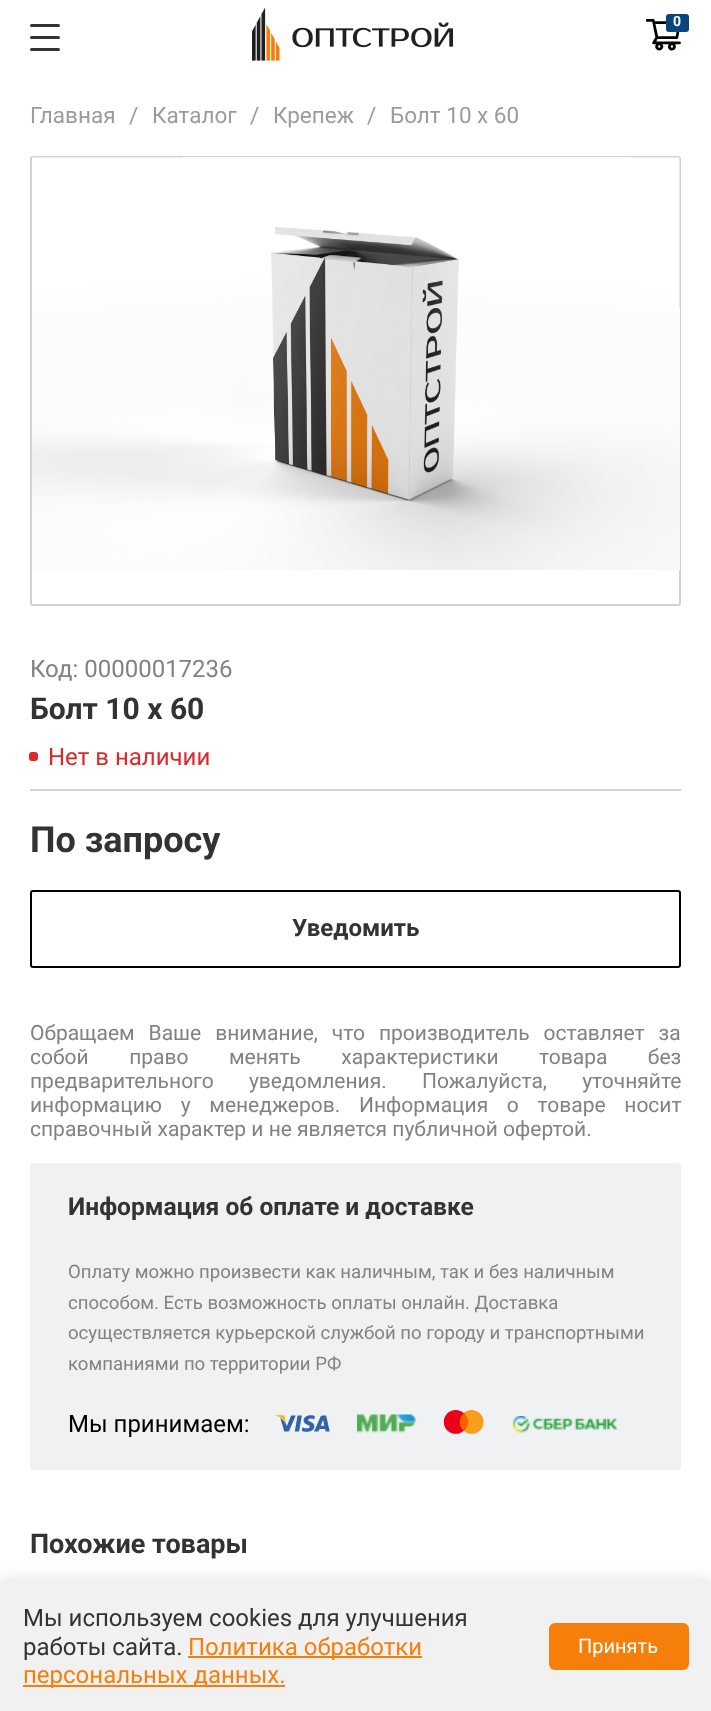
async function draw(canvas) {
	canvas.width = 711;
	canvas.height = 1711;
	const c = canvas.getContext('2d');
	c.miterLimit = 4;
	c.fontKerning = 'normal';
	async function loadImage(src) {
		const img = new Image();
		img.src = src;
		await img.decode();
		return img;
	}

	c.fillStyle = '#fff';
	c.fillRect(0, 0, 711, 1711);
	c.drawImage(await loadImage('img1.png'), 252, 8, 201, 53);
	c.drawImage(await loadImage('img2.png'), 645, 19, 36, 32);
	c.fillStyle = '#0a467b';
	c.beginPath();
	c.roundRect(666, 14, 23, 18, 3);
	c.fill();
	c.font = 'bold 14px Roboto';
	c.fillStyle = '#fff';
	c.fillText('0', 673, 26);
	c.fillStyle = '#333';
	c.beginPath();
	c.roundRect(30, 24, 30, 3, 1.5);
	c.fill();
	c.beginPath();
	c.roundRect(30, 36, 30, 3, 1.5);
	c.fill();
	c.beginPath();
	c.roundRect(30, 48, 30, 3, 1.5);
	c.fill();
	c.font = '22.5px Roboto';
	c.fillStyle = '#9b9b9b';
	for (const [text, x, y] of [
		['Главная', 30, 123],
		['/', 129, 123],
		['Каталог', 152, 123],
		['/', 250, 123],
		['Крепеж', 273, 123],
		['/', 367, 123],
		['Болт 10 х 60', 390, 123],
	]) {
		c.fillText(text, x, y);
	}
	c.beginPath();
	c.roundRect(31, 157, 649, 448, 2);
	c.strokeStyle = '#d2d2d2';
	c.lineWidth = 2;
	c.stroke();
	c.drawImage(await loadImage('img3.png'), 32, 157, 648, 413);
	c.font = '24px Roboto';
	c.fillStyle = '#828282';
	c.fillText('Код: 00000017236', 30, 677);
	c.font = 'bold 30px Roboto';
	c.fillStyle = '#333';
	c.fillText('Болт 10 х 60', 30, 719);
	c.fillStyle = '#d2d2d2';
	c.fillRect(30, 789, 651, 2);
	c.fillStyle = '#dc2828';
	c.beginPath();
	c.roundRect(29, 752, 9, 9, 3);
	c.fill();
	c.font = '24px Roboto';
	c.fillText('Нет в наличии', 48, 765);
	c.font = 'bold 36px Roboto';
	c.fillStyle = '#333';
	c.fillText('По запросу', 30, 852);
	c.beginPath();
	c.roundRect(31, 891, 649, 76, 2);
	c.strokeStyle = '#000';
	c.stroke();
	c.font = 'bold 24px Roboto';
	c.fillText('Уведомить', 292, 936);
	c.wordSpacing = '8.75px';
	c.font = '21px Roboto';
	c.fillStyle = '#828282';
	c.fillText('Обращаем Ваше внимание, что производитель оставляет за', 30, 1040);
	c.wordSpacing = '35.25px';
	c.fillText('собой право менять характеристики товара без', 30, 1064);
	c.wordSpacing = '30px';
	c.fillText('предварительного уведомления.', 30, 1088);
	c.fillText('Пожалуйста, уточняйте', 422, 1088);
	c.wordSpacing = '13.5px';
	c.fillText('информацию у менеджеров. Информация о товаре носит', 30, 1112);
	c.wordSpacing = '0px';
	c.fillText('справочный характер и не является публичной офертой.', 30, 1136);
	c.fillStyle = '#f0f1f3';
	c.beginPath();
	c.roundRect(30, 1163, 651, 307, 3);
	c.fill();
	c.font = 'bold 24.6px Roboto';
	c.fillStyle = '#333';
	c.fillText('Информация об оплате и доставке', 68, 1215);
	c.font = '18.6px Roboto';
	c.fillStyle = '#828282';
	for (const [text, x, y] of [
		['Оплату можно произвести как наличным, так и без наличным', 68, 1278],
		['способом. Есть возможность оплаты онлайн. Доставка', 68, 1309],
		['осуществляется курьерской службой по городу и транспортными', 68, 1339],
		['компаниями по территории РФ', 68, 1370],
	]) {
		c.fillText(text, x, y);
	}
	c.font = '24px Roboto';
	c.fillStyle = '#000';
	c.fillText('Мы принимаем:', 68, 1432);
	c.drawImage(await loadImage('img4.png'), 276, 1415, 54, 17);
	c.drawImage(await loadImage('img5.png'), 357, 1414, 59, 19);
	c.drawImage(await loadImage('img6.png'), 443, 1410, 41, 24);
	c.drawImage(await loadImage('img7.png'), 513, 1416, 105, 17);
	c.font = 'bold 27px Roboto';
	c.fillStyle = '#333';
	c.fillText('Похожие товары', 30, 1553);
	c.fillStyle = '#0000001a';
	c.filter = 'blur(7.5px)';
	c.beginPath();
	c.rect(0, 1578, 711, 131);
	c.fill();
	c.filter = 'none';
	c.fillStyle = '#f1f1f1';
	c.fillRect(0, 1581, 711, 130);
	c.font = '24px Roboto';
	c.fillStyle = '#333';
	c.fillText('Мы используем cookies для улучшения', 23, 1626);
	c.fillText('работы сайта.', 23, 1655);
	c.fillStyle = '#f57f0a';
	c.fillRect(188, 1656, 234, 2);
	c.fillText('Политика обработки', 188, 1655);
	c.fillRect(23, 1685, 262, 2);
	c.fillText('персональных данных.', 23, 1683);
	c.beginPath();
	c.roundRect(549, 1623, 140, 47, 6);
	c.fill();
	c.font = '20px Roboto';
	c.fillStyle = '#fff';
	c.fillText('Принять', 578, 1653);
}

draw(document.querySelector('canvas'));
